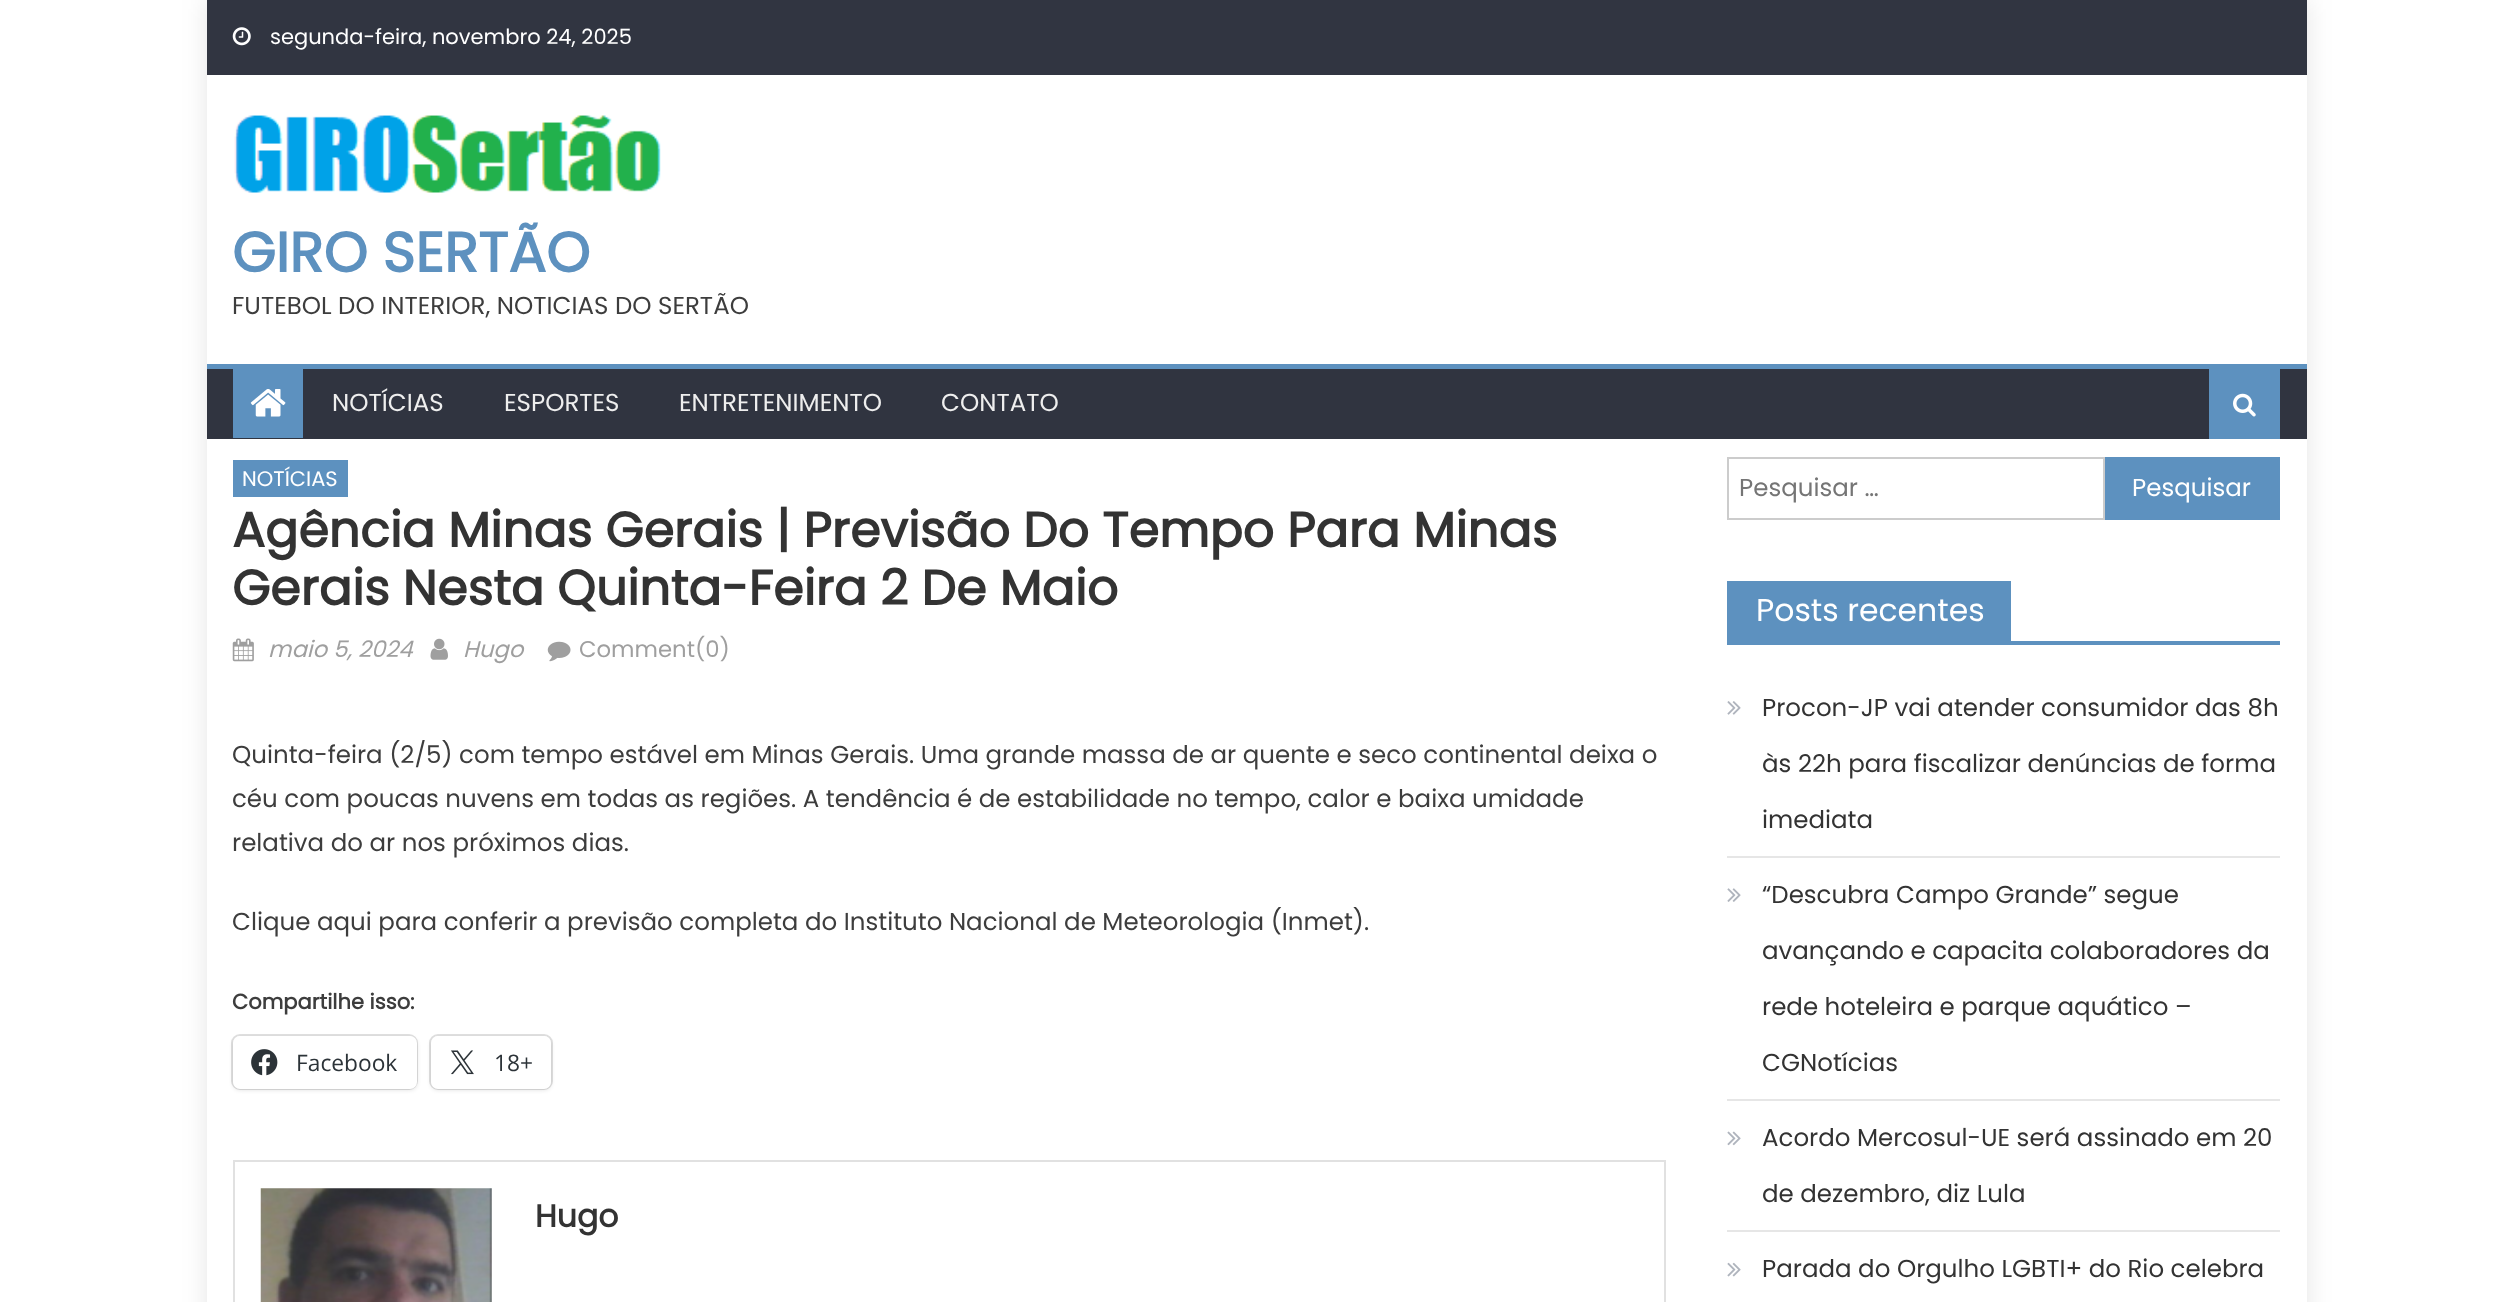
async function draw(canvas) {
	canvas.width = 2510;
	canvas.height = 1302;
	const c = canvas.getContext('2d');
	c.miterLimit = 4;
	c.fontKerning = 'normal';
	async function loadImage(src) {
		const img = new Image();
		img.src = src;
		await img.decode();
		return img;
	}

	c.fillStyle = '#fff';
	c.fillRect(0, 0, 2510, 1302);
	c.fillStyle = '#0000001a';
	c.filter = 'blur(13px)';
	c.beginPath();
	c.rect(207, 0, 2100, 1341);
	c.fill();
	c.filter = 'none';
	c.fillStyle = '#fff';
	c.fillRect(207, 75, 2100, 1227);
	c.fillStyle = '#313541';
	c.fillRect(207, 0, 2100, 75);
	c.drawImage(await loadImage('img1.png'), 232, 27, 19, 19);
	c.font = '21px Poppins';
	c.fillStyle = '#fff';
	c.fillText('segunda-feira, novembro 24, 2025', 270, 44);
	c.drawImage(await loadImage('img2.png'), 234, 115, 427, 78);
	c.font = 'bold 56px Poppins';
	c.fillStyle = '#5d91bf';
	c.fillText('GIRO SERTÃO', 232, 272);
	c.font = '24.5px Poppins';
	c.fillStyle = '#3d3d3d';
	c.fillText('FUTEBOL DO INTERIOR, NOTICIAS DO SERTÃO', 232, 314);
	for (const [x, y, w, h, color] of [
		[207, 369, 2100, 70, '#303440'],
		[207, 364, 2100, 5, '#5d91bf'],
		[233, 369, 70, 69, '#5d91bf'],
	]) {
		c.fillStyle = color;
		c.fillRect(x, y, w, h);
	}
	c.drawImage(await loadImage('img3.png'), 250, 389, 36, 28);
	c.fillStyle = '#eee';
	for (const [text, x, y] of [
		['NOTÍCIAS', 332, 411],
		['ESPORTES', 504, 411],
		['ENTRETENIMENTO', 679, 411],
		['CONTATO', 941, 411],
	]) {
		c.fillText(text, x, y);
	}
	c.fillStyle = '#5d91bf';
	c.fillRect(2209, 369, 71, 70);
	c.drawImage(await loadImage('img4.png'), 2233, 393, 23, 24);
	c.fillRect(233, 460, 115, 37);
	c.font = '21px Poppins';
	c.fillStyle = '#fff';
	c.fillText('NOTÍCIAS', 242, 486);
	c.font = 'bold 49px Poppins';
	c.fillStyle = '#333';
	c.fillText('Agência Minas Gerais | Previsão Do Tempo Para Minas', 232, 547);
	c.fillText('Gerais Nesta Quinta-Feira 2 De Maio', 232, 605);
	c.drawImage(await loadImage('img5.png'), 232, 638, 22, 24);
	c.font = 'italic 22.75px Poppins';
	c.fillStyle = '#9f9f9f';
	c.fillText('maio 5, 2024', 268, 657);
	c.drawImage(await loadImage('img6.png'), 430, 638, 18, 22);
	c.fillText('Hugo', 463, 657);
	c.drawImage(await loadImage('img7.png'), 547, 641, 24, 21);
	c.font = '22.75px Poppins';
	c.fillText('Comment(0)', 579, 657);
	c.font = '24.5px Poppins';
	c.fillStyle = '#3d3d3d';
	for (const [text, x, y] of [
		['Quinta-feira (2/5) com tempo estável em Minas Gerais. Uma grande massa de ar quente e seco continental deixa o', 232, 763],
		['céu com poucas nuvens em todas as regiões. A tendência é de estabilidade no tempo, calor e baixa umidade', 232, 807],
		['relativa do ar nos próximos dias.', 232, 851],
		['Clique aqui para conferir a previsão completa do Instituto Nacional de Meteorologia (Inmet).', 232, 930],
	]) {
		c.fillText(text, x, y);
	}
	c.font = 'bold 21px Poppins';
	c.fillText('Compartilhe isso:', 232, 1009);
	c.beginPath();
	c.roundRect(232, 1035, 185, 54, 8);
	c.strokeStyle = '#e0e0e0';
	c.lineWidth = 2;
	c.stroke();
	c.fillStyle = '#0000001f';
	c.filter = 'blur(2px)';
	c.beginPath();
	c.roundRect(233, 1038, 184, 52, 7);
	c.fill();
	c.filter = 'none';
	c.fillStyle = '#fff';
	c.beginPath();
	c.roundRect(233, 1036, 184, 53, 7);
	c.fill();
	c.drawImage(await loadImage('img8.png'), 251, 1049, 27, 27);
	c.font = '22.75px Open Sans';
	c.fillStyle = '#2c3338';
	c.fillText('Facebook', 296, 1071);
	c.beginPath();
	c.roundRect(430, 1035, 122, 54, 8);
	c.stroke();
	c.fillStyle = '#0000001f';
	c.filter = 'blur(2px)';
	c.beginPath();
	c.roundRect(431, 1038, 120, 52, 7);
	c.fill();
	c.filter = 'none';
	c.fillStyle = '#fff';
	c.beginPath();
	c.roundRect(431, 1036, 120, 53, 7);
	c.fill();
	c.drawImage(await loadImage('img9.png'), 451, 1050, 23, 25);
	c.fillStyle = '#2c3338';
	c.fillText('18+', 494, 1071);
	c.strokeStyle = '#e1e1e1';
	c.strokeRect(234, 1161, 1431, 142);
	c.drawImage(await loadImage('img10.png'), 260, 1188, 232, 114);
	c.font = 'bold 31.5px Poppins';
	c.fillStyle = '#333';
	c.fillText('Hugo', 535, 1227);
	c.strokeStyle = '#ccc';
	c.strokeRect(1728, 458, 376, 61);
	c.font = '24.5px Poppins';
	c.fillStyle = '#757575';
	c.fillText('Pesquisar …', 1739, 496);
	c.fillStyle = '#5d91bf';
	c.fillRect(2105, 457, 175, 63);
	c.fillStyle = '#fff';
	c.fillText('Pesquisar', 2132, 496);
	for (const [x, y, w, h, color] of [
		[1727, 641, 553, 4, '#5d91bf'],
		[1727, 581, 4, 63, '#5d91bf'],
		[1731, 581, 280, 60, '#5d91bf'],
	]) {
		c.fillStyle = color;
		c.fillRect(x, y, w, h);
	}
	c.font = '31.5px Poppins';
	c.fillStyle = '#fff';
	c.fillText('Posts recentes', 1756, 621);
	c.fillStyle = '#e6e6e6';
	c.fillRect(1727, 856, 553, 2);
	c.drawImage(await loadImage('img11.png'), 1727, 701, 14, 14);
	c.font = '24.5px Poppins';
	c.fillStyle = '#333';
	for (const [text, x, y] of [
		['Procon-JP vai atender consumidor das 8h', 1762, 716],
		['às 22h para fiscalizar denúncias de forma', 1762, 772],
		['imediata', 1762, 828],
	]) {
		c.fillText(text, x, y);
	}
	c.fillStyle = '#e6e6e6';
	c.fillRect(1727, 1099, 553, 2);
	c.drawImage(await loadImage('img12.png'), 1727, 888, 14, 14);
	c.fillStyle = '#333';
	for (const [text, x, y] of [
		['“Descubra Campo Grande” segue', 1762, 903],
		['avançando e capacita colaboradores da', 1762, 959],
		['rede hoteleira e parque aquático –', 1762, 1015],
		['CGNotícias', 1762, 1071],
	]) {
		c.fillText(text, x, y);
	}
	c.fillStyle = '#e6e6e6';
	c.fillRect(1727, 1230, 553, 2);
	c.drawImage(await loadImage('img13.png'), 1727, 1131, 14, 15);
	c.fillStyle = '#333';
	c.fillText('Acordo Mercosul-UE será assinado em 20', 1762, 1146);
	c.fillText('de dezembro, diz Lula', 1762, 1202);
	c.drawImage(await loadImage('img14.png'), 1727, 1262, 14, 15);
	c.fillText('Parada do Orgulho LGBTI+ do Rio celebra', 1762, 1277);
}

draw(document.querySelector('canvas'));
